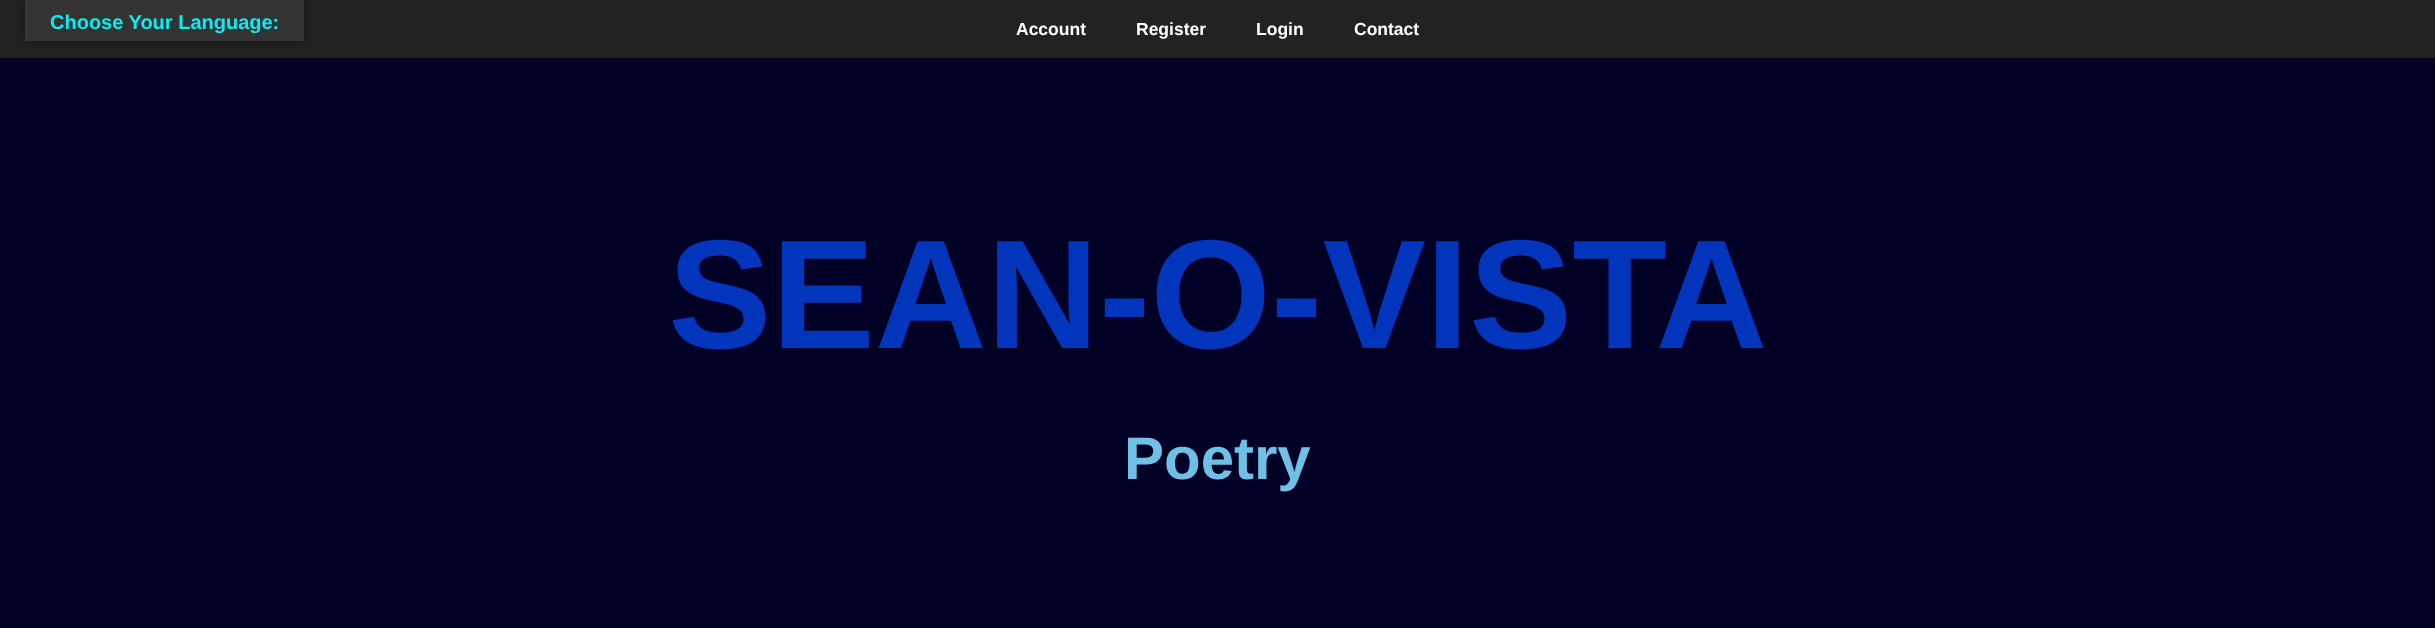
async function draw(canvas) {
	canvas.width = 2435;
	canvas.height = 628;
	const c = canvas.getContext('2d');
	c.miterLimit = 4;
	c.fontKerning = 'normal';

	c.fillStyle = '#000026';
	c.fillRect(0, 0, 2435, 628);
	c.fillStyle = '#222';
	c.fillRect(0, 0, 2435, 58);
	c.fillStyle = '#0000004d';
	c.filter = 'blur(5.5px)';
	c.beginPath();
	c.rect(25, 0, 279, 41);
	c.fill();
	c.filter = 'none';
	c.fillStyle = '#333';
	c.fillRect(25, 0, 279, 41);
	c.font = 'bold 20px Liberation Sans';
	c.fillStyle = '#10eaf2';
	c.fillText('Choose Your Language:', 50, 29);
	c.font = 'bold 17.5px Liberation Sans';
	c.fillStyle = '#fff';
	for (const [text, x, y] of [
		['Account', 1016, 35],
		['Register', 1136, 35],
		['Login', 1256, 35],
		['Contact', 1354, 35],
	]) {
		c.fillText(text, x, y);
	}
	c.font = 'bold 155px Liberation Sans';
	c.fillStyle = '#0035bc';
	c.fillText('SEAN-O-VISTA', 668, 348);
	c.font = 'bold 60px Liberation Sans';
	c.fillStyle = '#6ec1e4';
	c.fillText('Poetry', 1124, 479);
}

draw(document.querySelector('canvas'));
